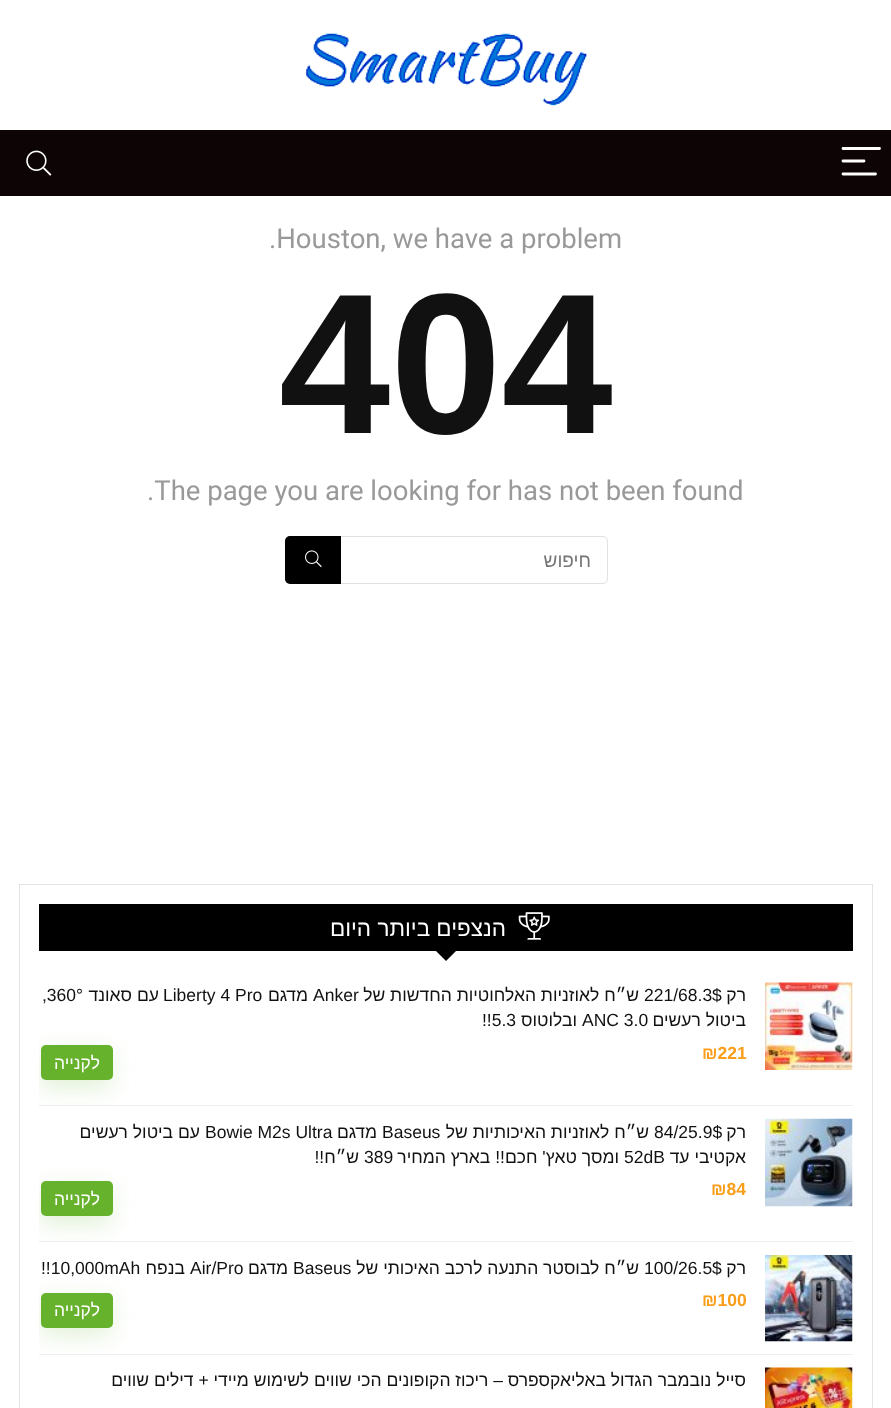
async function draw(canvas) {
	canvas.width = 891;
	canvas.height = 1408;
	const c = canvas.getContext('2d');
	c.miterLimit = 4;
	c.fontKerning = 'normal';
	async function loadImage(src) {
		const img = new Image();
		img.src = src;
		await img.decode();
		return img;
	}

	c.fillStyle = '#fff';
	c.fillRect(0, 0, 891, 1408);
	c.drawImage(await loadImage('img1.png'), 305, 33, 282, 73);
	c.fillStyle = '#0d0505';
	c.fillRect(0, 130, 891, 66);
	c.beginPath();
	c.moveTo(843, 148.5);
	c.lineTo(879.5, 148.5);
	c.moveTo(843, 161);
	c.lineTo(864, 161);
	c.moveTo(843, 174);
	c.lineTo(875.5, 174);
	c.strokeStyle = '#fff';
	c.lineWidth = 2.8;
	c.lineCap = 'round';
	c.stroke();
	c.drawImage(await loadImage('img2.png'), 26, 150, 26, 26);
	c.font = '27.5px Roboto';
	c.fillStyle = '#999';
	c.fillText('.Houston, we have a problem', 269, 248);
	c.font = 'bold 200px Liberation Sans';
	c.fillStyle = '#111';
	c.fillText('404', 279, 433);
	c.font = '27.5px Roboto';
	c.fillStyle = '#999';
	c.fillText('.The page you are looking for has not been found', 147, 500);
	c.beginPath();
	c.roundRect(285.5, 536.5, 322, 47, 4.5);
	c.strokeStyle = '#e1e1e1';
	c.lineWidth = 1;
	c.stroke();
	c.direction = 'rtl';
	c.font = '19px Liberation Sans';
	c.fillStyle = '#757575';
	c.fillText('חיפוש', 591, 567);
	c.fillStyle = '#000';
	c.beginPath();
	c.roundRect(285, 536, 56, 48, [5, 0, 0, 5]);
	c.fill();
	c.drawImage(await loadImage('img3.png'), 305, 550, 17, 17);
	c.strokeStyle = '#e3e3e3';
	c.strokeRect(19.5, 884.5, 853, 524);
	c.fillRect(39, 904, 814, 47);
	c.drawImage(await loadImage('img4.png'), 518, 912, 32, 28);
	c.font = '22.5px Liberation Sans';
	c.fillStyle = '#fff';
	c.fillText('הנצפים ביותר היום', 506, 936);
	c.fillStyle = '#000';
	c.beginPath();
	c.moveTo(436, 951);
	c.lineTo(456, 951);
	c.lineTo(446, 961);
	c.closePath();
	c.fill();
	c.fillStyle = '#eee';
	c.fillRect(39, 1105, 814, 1);
	c.drawImage(await loadImage('img5.png'), 765, 982, 88, 88);
	c.font = '17.5px Liberation Sans';
	c.fillStyle = '#111';
	c.fillText('רק', 746, 1001);
	c.direction = 'ltr';
	c.fillText('221/68.3$', 644, 1001);
	c.direction = 'rtl';
	c.fillText('ש״ח לאוזניות האלחוטיות החדשות של', 639, 1001);
	c.direction = 'ltr';
	c.fillText('Anker', 313, 1001);
	c.direction = 'rtl';
	c.fillText('מדגם', 308, 1001);
	c.direction = 'ltr';
	c.fillText('Liberty 4 Pro', 163, 1001);
	c.direction = 'rtl';
	c.fillText('עם סאונד', 159, 1001);
	c.direction = 'ltr';
	c.fillText(',360°', 42, 1001);
	c.direction = 'rtl';
	c.fillText('ביטול רעשים', 746, 1026);
	c.direction = 'ltr';
	c.fillText('ANC 3.0', 582, 1026);
	c.direction = 'rtl';
	c.fillText('ובלוטוס', 577, 1026);
	c.direction = 'ltr';
	c.fillText('!!5.3', 482, 1026);
	c.font = 'bold 17.5px Liberation Sans';
	c.fillStyle = '#fa9e19';
	c.fillText('₪221', 702, 1059);
	c.save();
	c.beginPath();
	c.rect(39, 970, 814, 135);
	c.clip();
	c.fillStyle = '#66b22c33';
	c.filter = 'blur(12px)';
	c.beginPath();
	c.roundRect(40, 1053, 71, 35, 5);
	c.fill();
	c.filter = 'none';
	c.restore();
	c.fillStyle = '#66b22c';
	c.beginPath();
	c.roundRect(41, 1045, 72, 35, 5);
	c.fill();
	c.direction = 'rtl';
	c.font = '17.5px Liberation Sans';
	c.fillStyle = '#fff';
	c.fillText('לקנייה', 100, 1069);
	c.fillStyle = '#eee';
	c.fillRect(39, 1241, 814, 1);
	c.drawImage(await loadImage('img6.png'), 765, 1118, 88, 89);
	c.fillStyle = '#111';
	c.fillText('רק', 746, 1138);
	c.direction = 'ltr';
	c.fillText('84/25.9$', 654, 1138);
	c.direction = 'rtl';
	c.fillText('ש״ח לאוזניות האיכותיות של', 649, 1138);
	c.direction = 'ltr';
	c.fillText('Baseus', 382, 1138);
	c.direction = 'rtl';
	c.fillText('מדגם', 377, 1138);
	c.direction = 'ltr';
	c.fillText('Bowie M2s Ultra', 205, 1138);
	c.direction = 'rtl';
	c.fillText('עם ביטול רעשים', 200, 1138);
	c.fillText('אקטיבי עד', 746, 1163);
	c.direction = 'ltr';
	c.fillText('52dB', 624, 1163);
	c.direction = 'rtl';
	c.fillText('ומסך טאץ\' חכם!! בארץ המחיר', 619, 1163);
	c.direction = 'ltr';
	c.fillText('389', 364, 1163);
	c.direction = 'rtl';
	c.fillText('ש״ח!!', 359, 1163);
	c.direction = 'ltr';
	c.font = 'bold 17.5px Liberation Sans';
	c.fillStyle = '#fa9e19';
	c.fillText('₪84', 711, 1195);
	c.save();
	c.beginPath();
	c.rect(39, 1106, 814, 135);
	c.clip();
	c.fillStyle = '#66b22c33';
	c.filter = 'blur(12px)';
	c.beginPath();
	c.roundRect(40, 1189, 71, 35, 5);
	c.fill();
	c.filter = 'none';
	c.restore();
	c.fillStyle = '#66b22c';
	c.beginPath();
	c.roundRect(41, 1181, 72, 35, 5);
	c.fill();
	c.direction = 'rtl';
	c.font = '17.5px Liberation Sans';
	c.fillStyle = '#fff';
	c.fillText('לקנייה', 100, 1205);
	c.fillStyle = '#eee';
	c.fillRect(39, 1354, 814, 1);
	c.drawImage(await loadImage('img7.png'), 765, 1255, 88, 87);
	c.fillStyle = '#111';
	c.fillText('רק', 746, 1274);
	c.direction = 'ltr';
	c.fillText('100/26.5$', 644, 1274);
	c.direction = 'rtl';
	c.fillText('ש״ח לבוסטר התנעה לרכב האיכותי של', 639, 1274);
	c.direction = 'ltr';
	c.fillText('Baseus', 293, 1274);
	c.direction = 'rtl';
	c.fillText('מדגם', 288, 1274);
	c.direction = 'ltr';
	c.fillText('Air/Pro', 190, 1274);
	c.direction = 'rtl';
	c.fillText('בנפח', 185, 1274);
	c.direction = 'ltr';
	c.fillText('!!10,000mAh', 41, 1274);
	c.font = 'bold 17.5px Liberation Sans';
	c.fillStyle = '#fa9e19';
	c.fillText('₪100', 702, 1306);
	c.save();
	c.beginPath();
	c.rect(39, 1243, 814, 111);
	c.clip();
	c.fillStyle = '#66b22c33';
	c.filter = 'blur(12px)';
	c.beginPath();
	c.roundRect(40, 1300, 71, 35, 5);
	c.fill();
	c.filter = 'none';
	c.restore();
	c.fillStyle = '#66b22c';
	c.beginPath();
	c.roundRect(41, 1293, 72, 35, 5);
	c.fill();
	c.direction = 'rtl';
	c.font = '17.5px Liberation Sans';
	c.fillStyle = '#fff';
	c.fillText('לקנייה', 100, 1316);
	c.drawImage(await loadImage('img8.png'), 765, 1367, 88, 41);
	c.fillStyle = '#111';
	c.fillText('סייל נובמבר הגדול באליאקספרס – ריכוז הקופונים הכי שווים לשימוש מיידי + דילים שווים', 746, 1386);
}

draw(document.querySelector('canvas'));
